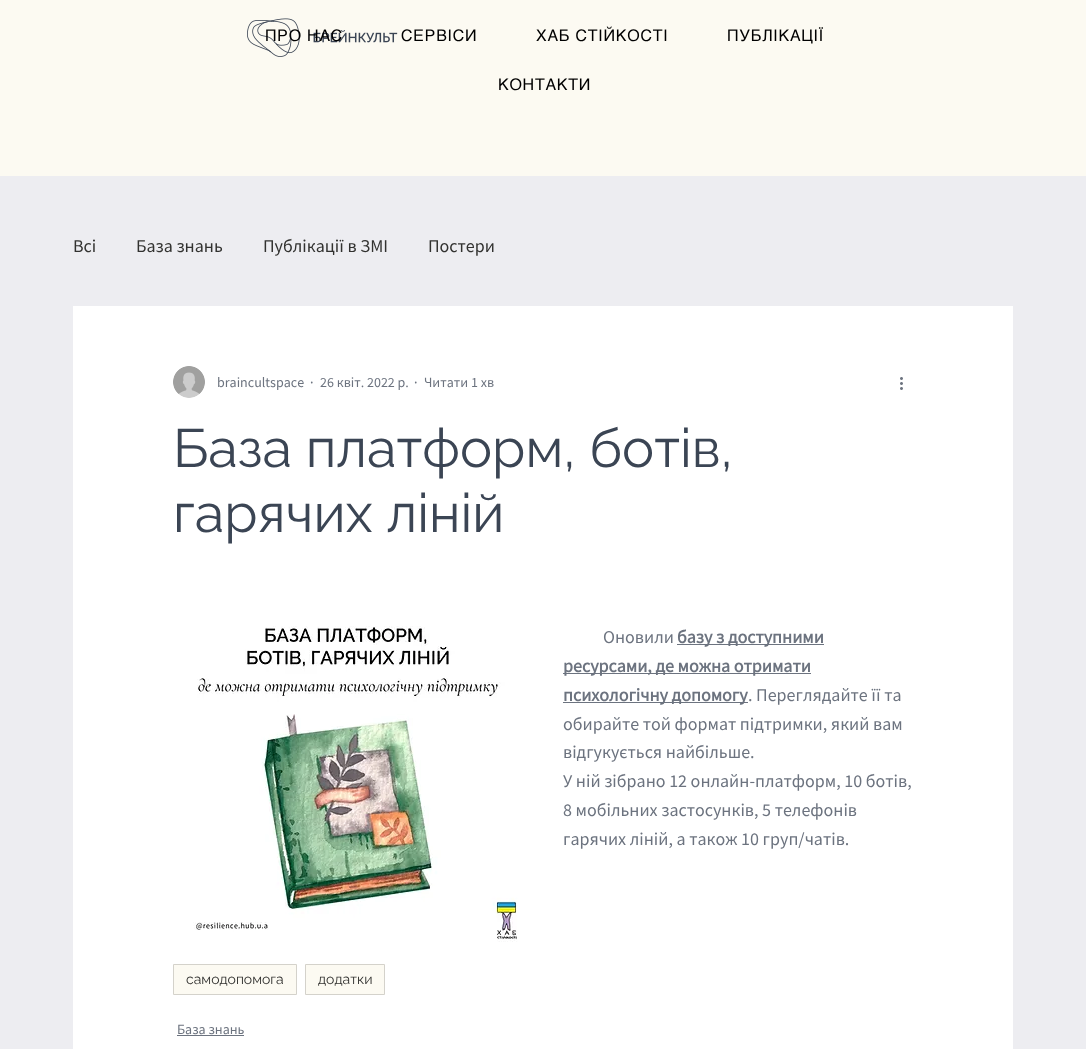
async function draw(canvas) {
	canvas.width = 1086;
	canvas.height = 1049;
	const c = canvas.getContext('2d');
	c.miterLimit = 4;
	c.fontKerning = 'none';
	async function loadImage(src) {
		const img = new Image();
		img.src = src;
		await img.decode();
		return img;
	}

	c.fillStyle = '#ededf1';
	c.fillRect(0, 0, 1086, 1049);
	c.fillStyle = '#fcfaf2';
	c.fillRect(0, 0, 1086, 176);
	c.drawImage(await loadImage('img1.png'), 247, 18, 151, 39);
	c.letterSpacing = '0.75px';
	c.font = '16px helvetica';
	c.fillStyle = '#000';
	for (const [text, x, y] of [
		['ПРО НАС', 265, 41],
		['СЕРВІСИ', 401, 41],
		['ХАБ СТІЙКОСТІ', 536, 41],
		['ПУБЛІКАЦІЇ', 727, 41],
		['КОНТАКТИ', 498, 90],
	]) {
		c.fillText(text, x, y);
	}
	c.letterSpacing = '0px';
	c.font = '18px Source Sans Pro';
	c.fillStyle = '#323230';
	for (const [text, x, y] of [
		['Всі', 73, 252],
		['База знань', 136, 252],
		['Публікації в ЗМІ', 263, 252],
		['Постери', 428, 252],
	]) {
		c.fillText(text, x, y);
	}
	c.fillStyle = '#fff';
	c.fillRect(73, 306, 940, 743);
	c.drawImage(await loadImage('img2.png'), 173, 366, 32, 32);
	c.font = '14px Source Sans Pro';
	c.fillStyle = '#6c737f';
	for (const [text, x, y] of [
		['braincultspace', 217, 387],
		['·', 310, 387],
		['26 квіт. 2022 р.', 320, 387],
		['·', 414, 387],
		['Читати 1 хв', 424, 387],
	]) {
		c.fillText(text, x, y);
	}
	c.drawImage(await loadImage('img3.png'), 900, 377, 3, 13);
	c.font = '54px Raleway';
	c.fillStyle = '#3b4554';
	c.fillText('База платформ, ботів,', 173, 467);
	c.fillText('гарячих ліній', 173, 532);
	c.drawImage(await loadImage('img4.png'), 193, 626, 325, 316);
	c.font = '18px Source Sans Pro';
	c.fillStyle = '#6c737f';
	c.fillText('Оновили', 603, 643);
	c.fillRect(677, 644, 147, 1);
	c.font = 'bold 18px Source Sans Pro';
	c.fillText('базу з доступними', 677, 643);
	c.fillRect(563, 673, 248, 1);
	c.fillText('ресурсами, де можна отримати', 563, 672);
	c.fillRect(563, 702, 185, 1);
	c.fillText('психологічну допомогу', 563, 701);
	c.font = '18px Source Sans Pro';
	for (const [text, x, y] of [
		['. Переглядайте її та', 748, 701],
		['обирайте той формат підтримки, який вам', 563, 730],
		['відгукується найбільше.', 563, 758],
		['У ній зібрано 12 онлайн-платформ, 10 ботів,', 563, 787],
		['8 мобільних застосунків, 5 телефонів', 563, 816],
		['гарячих ліній, а також 10 груп/чатів.', 563, 845],
	]) {
		c.fillText(text, x, y);
	}
	c.fillStyle = '#fcfaf2';
	c.beginPath();
	c.rect(173.5, 964.5, 123, 30);
	c.fill();
	c.strokeStyle = '#d4d2cb';
	c.stroke();
	c.font = '14px Raleway';
	c.fillStyle = '#323230';
	c.fillText('самодопомога', 186, 984);
	c.fillStyle = '#fcfaf2';
	c.beginPath();
	c.rect(305.5, 964.5, 79, 30);
	c.fill();
	c.stroke();
	c.fillStyle = '#323230';
	c.fillText('додатки', 318, 984);
	c.font = '14px Source Sans Pro';
	c.fillStyle = '#6c737f';
	c.fillText('База знань', 177, 1034);
	c.fillRect(177, 1035, 67, 1);
}

draw(document.querySelector('canvas'));
